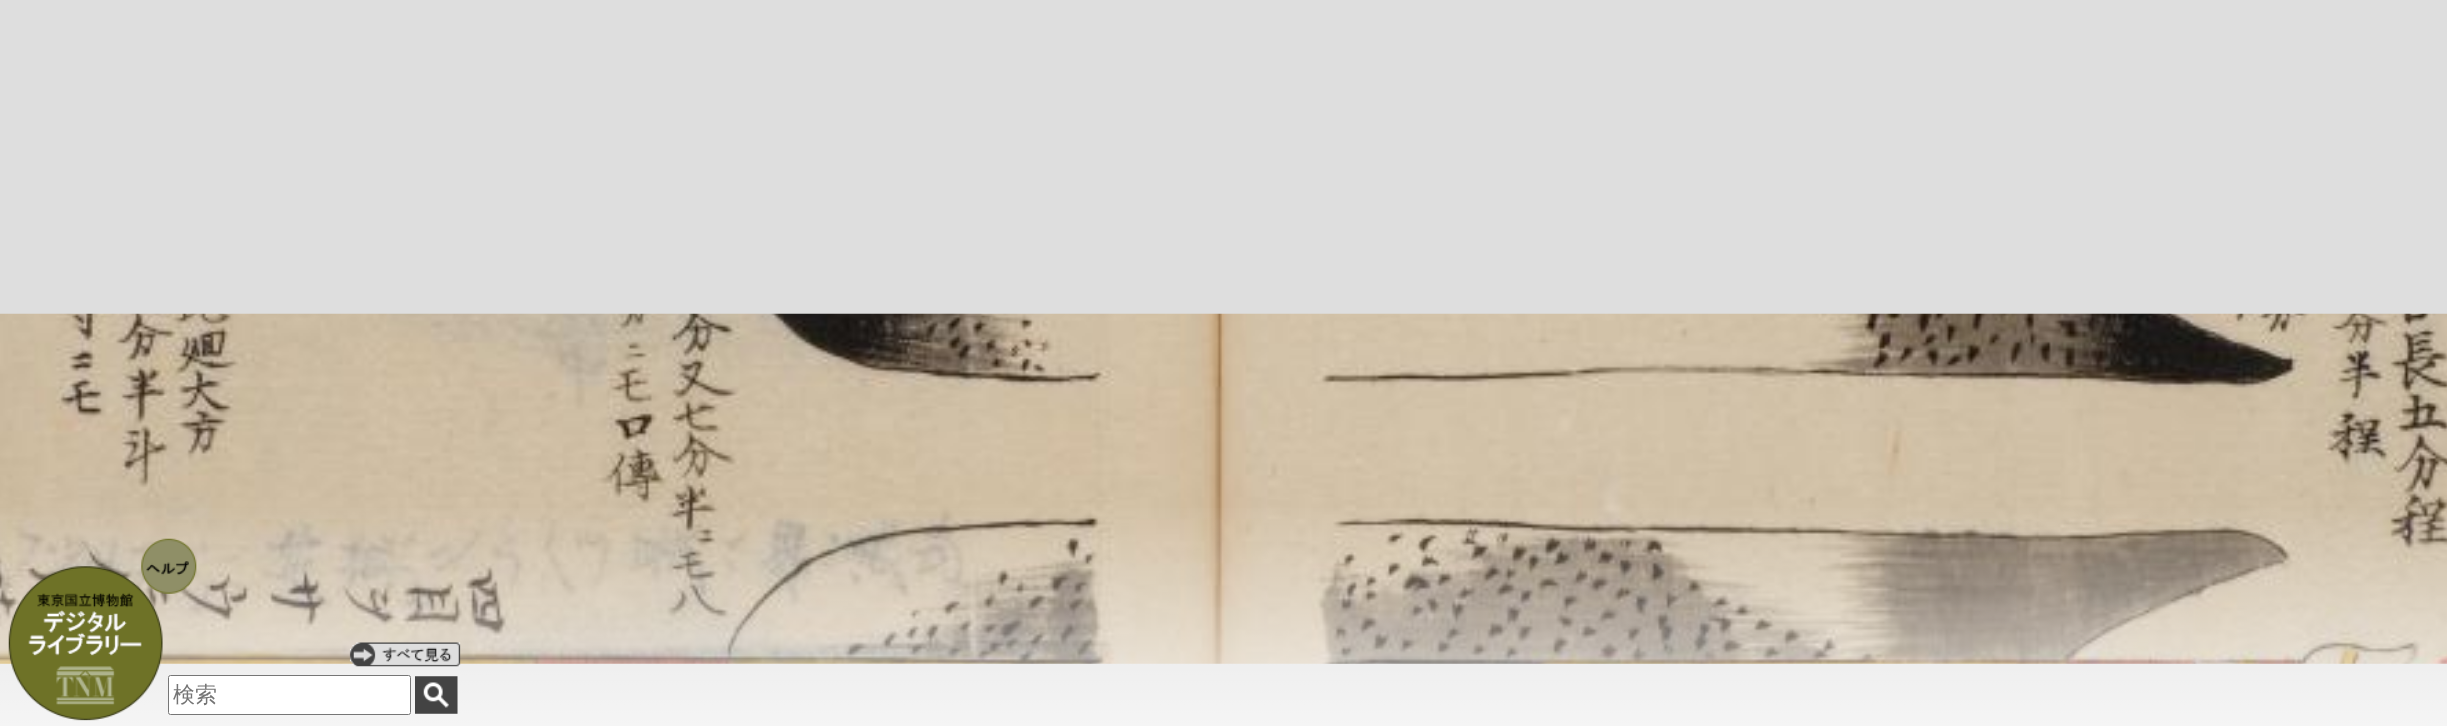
async function draw(canvas) {
	canvas.width = 2447;
	canvas.height = 726;
	const c = canvas.getContext('2d');
	c.miterLimit = 4;
	c.fontKerning = 'normal';
	async function loadImage(src) {
		const img = new Image();
		img.src = src;
		await img.decode();
		return img;
	}
	let gradient;

	c.fillStyle = '#dedede';
	c.fillRect(0, 0, 2447, 726);
	c.drawImage(await loadImage('img1.png'), 0, 313, 2447, 351);
	gradient = c.createLinearGradient(1224, 726, 1224, 501);
	gradient.addColorStop(0, '#ffffffb3');
	gradient.addColorStop(1, '#ffffff00');
	c.fillStyle = gradient;
	c.fillRect(0, 508, 2447, 218);
	c.drawImage(await loadImage('img2.png'), 8, 538, 189, 183);
	c.drawImage(await loadImage('img3.png'), 349, 642, 112, 25);
	c.fillStyle = '#fff';
	c.beginPath();
	c.roundRect(168.5, 675.5, 242, 39, 2);
	c.fill();
	c.strokeStyle = '#767676';
	c.stroke();
	c.font = '500 22px WenQuanYi Zen Hei';
	c.fillStyle = '#757575';
	c.fillText('検索', 173, 702);
	c.fillStyle = '#efefef';
	c.fillRect(415, 692, 43, 22);
	c.drawImage(await loadImage('img4.png'), 415, 676, 43, 38);
}

draw(document.querySelector('canvas'));
